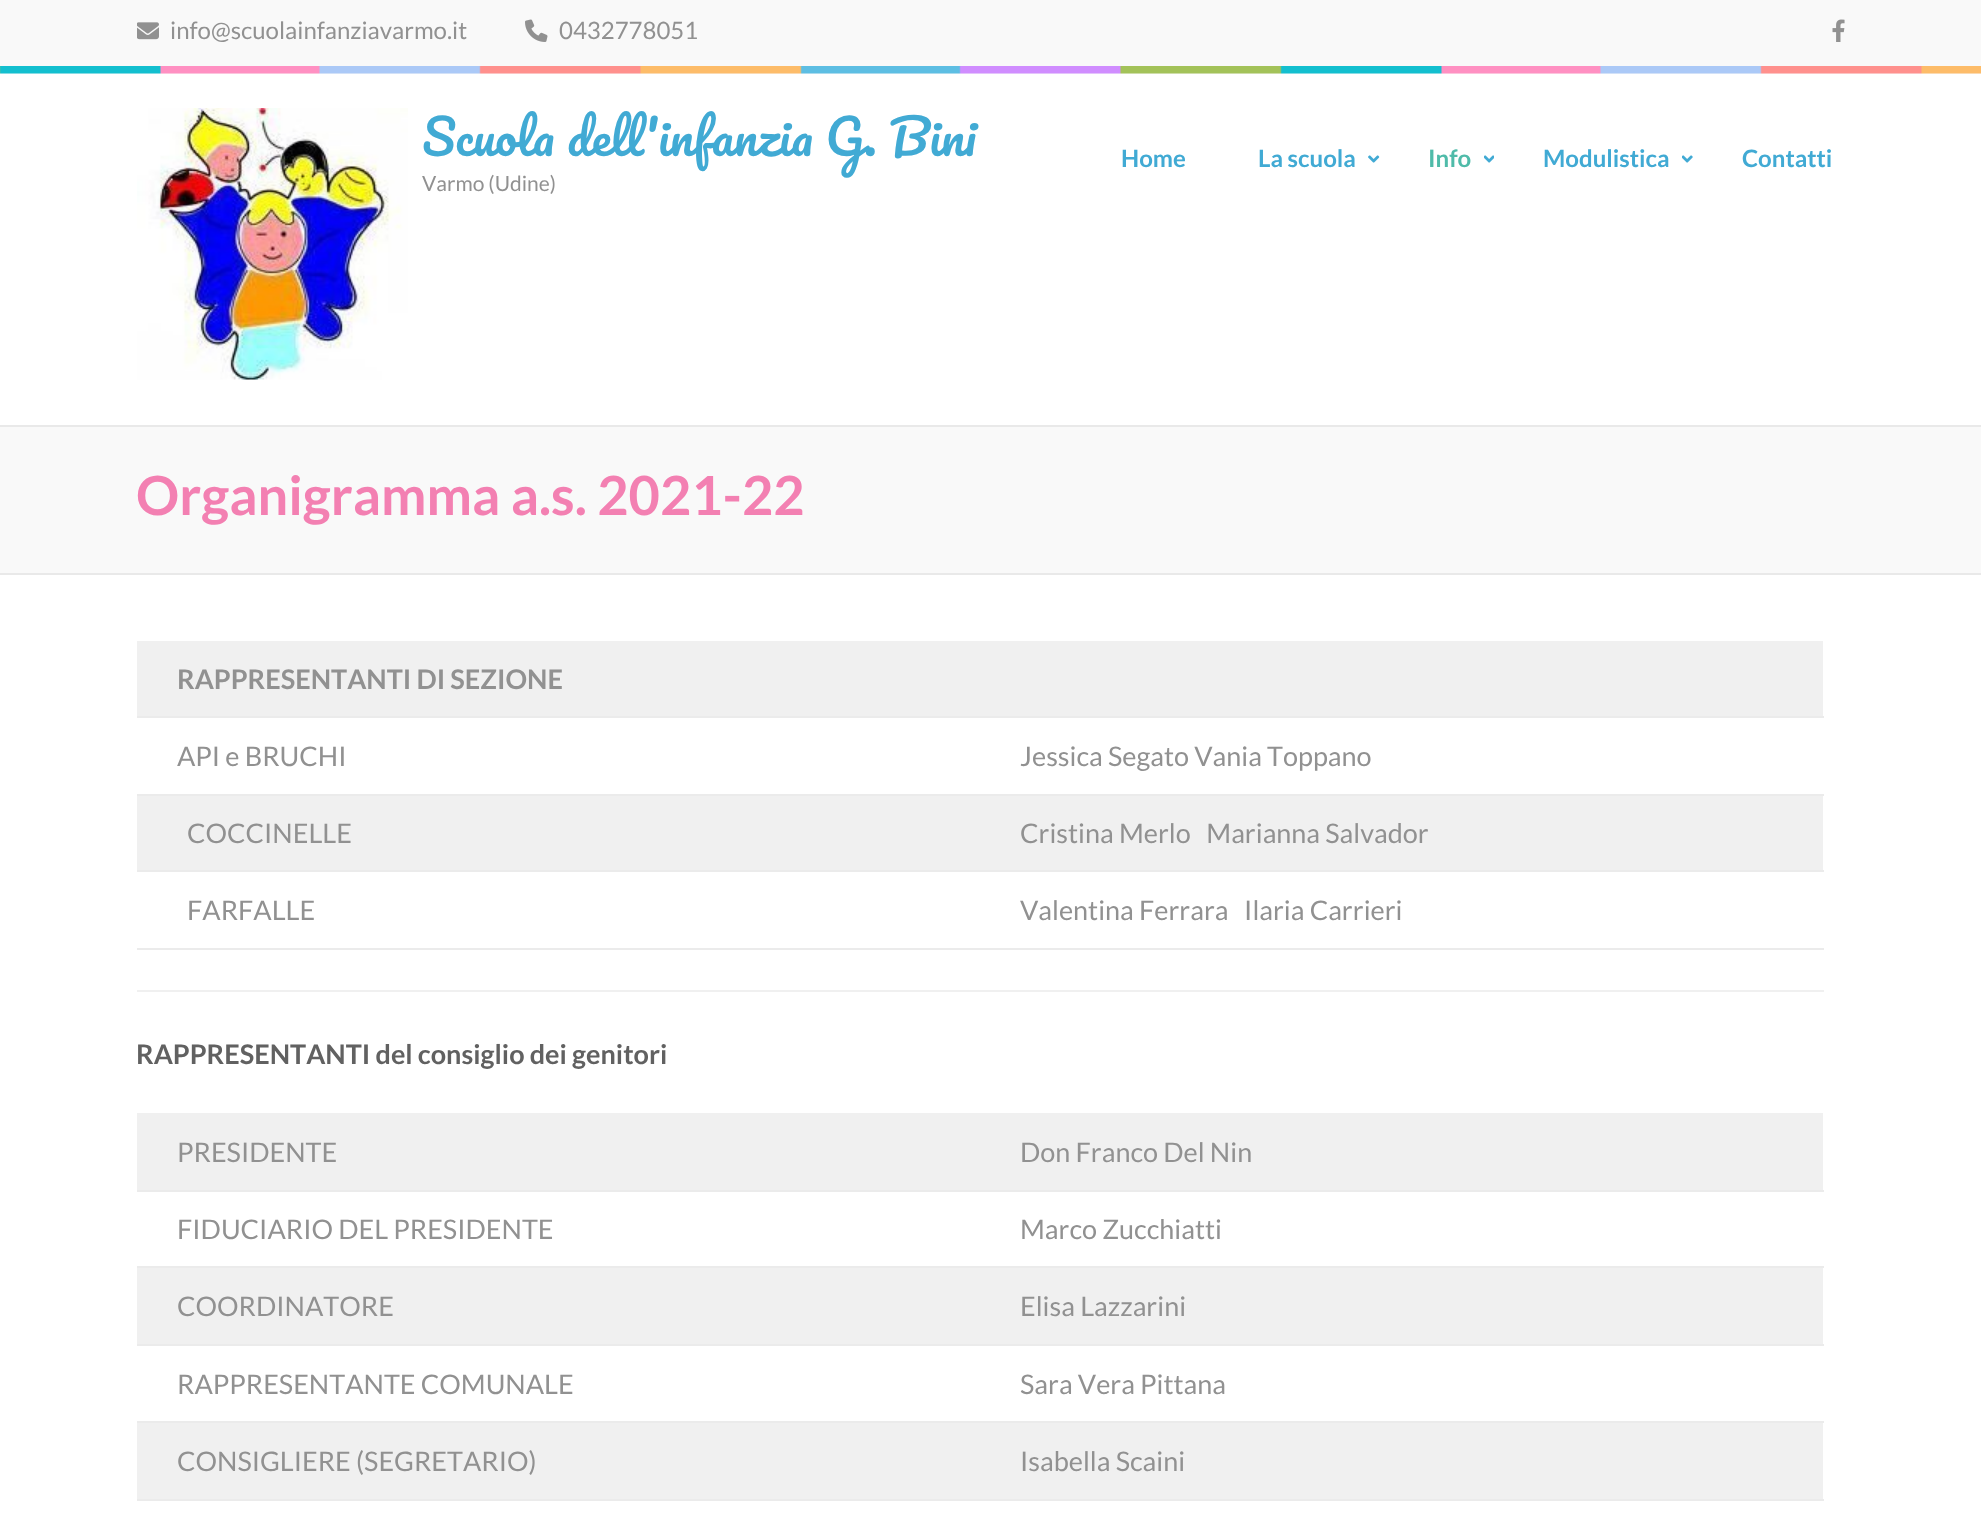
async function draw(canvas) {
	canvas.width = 1981;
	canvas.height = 1517;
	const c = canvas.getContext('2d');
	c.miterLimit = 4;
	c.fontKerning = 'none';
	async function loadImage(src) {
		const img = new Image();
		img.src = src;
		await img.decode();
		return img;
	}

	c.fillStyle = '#fff';
	c.fillRect(0, 0, 1981, 1517);
	c.fillStyle = '#f9f9f9';
	c.fillRect(0, 0, 1981, 74);
	c.drawImage(await loadImage('img1.png'), 0, 66, 1981, 8);
	c.drawImage(await loadImage('img2.png'), 137, 22, 22, 18);
	c.font = '24px Lato';
	c.fillStyle = '#919191';
	c.fillText('info@scuolainfanziavarmo.it', 170, 39);
	c.drawImage(await loadImage('img3.png'), 525, 19, 23, 23);
	c.fillText('0432778051', 559, 39);
	c.drawImage(await loadImage('img4.png'), 1832, 19, 13, 23);
	c.drawImage(await loadImage('img5.png'), 137, 108, 271, 272);
	c.font = '48px Pacifico';
	c.fillStyle = '#41aad4';
	c.fillText('Scuola dell\'infanzia G. Bini', 422, 156);
	c.font = '21px Lato';
	c.fillStyle = '#919191';
	c.fillText('Varmo (Udine)', 422, 191);
	c.font = 'bold 24px Lato';
	c.fillStyle = '#41aad4';
	c.fillText('Home', 1121, 167);
	c.fillText('La scuola', 1258, 167);
	c.drawImage(await loadImage('img6.png'), 1368, 155, 12, 8);
	c.fillStyle = '#4fbba9';
	c.fillText('Info', 1428, 167);
	c.drawImage(await loadImage('img7.png'), 1484, 155, 10, 8);
	c.fillStyle = '#41aad4';
	c.fillText('Modulistica', 1543, 167);
	c.drawImage(await loadImage('img8.png'), 1682, 155, 11, 8);
	c.fillText('Contatti', 1742, 167);
	for (const [x, y, w, h, color] of [
		[0, 427, 1981, 146, '#f9f9f9'],
		[0, 425, 1981, 2, '#e9e9e9'],
		[0, 573, 1981, 2, '#e9e9e9'],
	]) {
		c.fillStyle = color;
		c.fillRect(x, y, w, h);
	}
	c.font = 'bold 54px Lato';
	c.fillStyle = '#f380b2';
	c.fillText('Organigramma a.s. 2021-22', 136, 515);
	for (const [x, y, w, h, color] of [
		[137, 990, 1687, 2, '#f0f0f0'],
		[137, 641, 1686, 75, '#f0f0f0'],
		[137, 716, 1687, 2, '#ebebeb'],
	]) {
		c.fillStyle = color;
		c.fillRect(x, y, w, h);
	}
	c.font = 'bold 27px Lato';
	c.fillStyle = '#919191';
	c.fillText('RAPPRESENTANTI DI SEZIONE', 177, 689);
	c.fillStyle = '#ebebeb';
	c.fillRect(137, 794, 1687, 2);
	c.font = '27px Lato';
	c.fillStyle = '#919191';
	c.fillText('API e BRUCHI', 177, 766);
	c.fillText('Jessica Segato Vania Toppano', 1020, 766);
	c.fillStyle = '#f0f0f0';
	c.fillRect(137, 796, 1686, 74);
	c.fillStyle = '#ebebeb';
	c.fillRect(137, 870, 1687, 2);
	c.fillStyle = '#919191';
	c.fillText('COCCINELLE', 187, 843);
	c.fillText('Cristina Merlo   Marianna Salvador', 1020, 843);
	c.fillStyle = '#ebebeb';
	c.fillRect(137, 948, 1687, 2);
	c.fillStyle = '#919191';
	c.fillText('FARFALLE', 187, 920);
	c.fillText('Valentina Ferrara   Ilaria Carrieri', 1020, 920);
	c.font = 'bold 27px Lato';
	c.fillStyle = '#616161';
	c.fillText('RAPPRESENTANTI del consiglio dei genitori', 136, 1064);
	c.fillStyle = '#f0f0f0';
	c.fillRect(137, 1113, 1686, 77);
	c.fillStyle = '#ebebeb';
	c.fillRect(137, 1190, 1687, 2);
	c.font = '27px Lato';
	c.fillStyle = '#919191';
	c.fillText('PRESIDENTE', 177, 1162);
	c.fillText('Don Franco Del Nin', 1020, 1162);
	c.fillStyle = '#ebebeb';
	c.fillRect(137, 1266, 1687, 2);
	c.fillStyle = '#919191';
	c.fillText('FIDUCIARIO DEL PRESIDENTE', 177, 1239);
	c.fillText('Marco Zucchiatti', 1020, 1239);
	c.fillStyle = '#f0f0f0';
	c.fillRect(137, 1268, 1686, 76);
	c.fillStyle = '#ebebeb';
	c.fillRect(137, 1344, 1687, 2);
	c.fillStyle = '#919191';
	c.fillText('COORDINATORE', 177, 1316);
	c.fillText('Elisa Lazzarini', 1020, 1316);
	c.fillStyle = '#ebebeb';
	c.fillRect(137, 1421, 1687, 2);
	c.fillStyle = '#919191';
	c.fillText('RAPPRESENTANTE COMUNALE', 177, 1394);
	c.fillText('Sara Vera Pittana', 1020, 1394);
	c.fillStyle = '#f0f0f0';
	c.fillRect(137, 1423, 1686, 76);
	c.fillStyle = '#ebebeb';
	c.fillRect(137, 1499, 1687, 2);
	c.fillStyle = '#919191';
	c.fillText('CONSIGLIERE (SEGRETARIO)', 177, 1471);
	c.fillText('Isabella Scaini', 1020, 1471);
}

draw(document.querySelector('canvas'));
